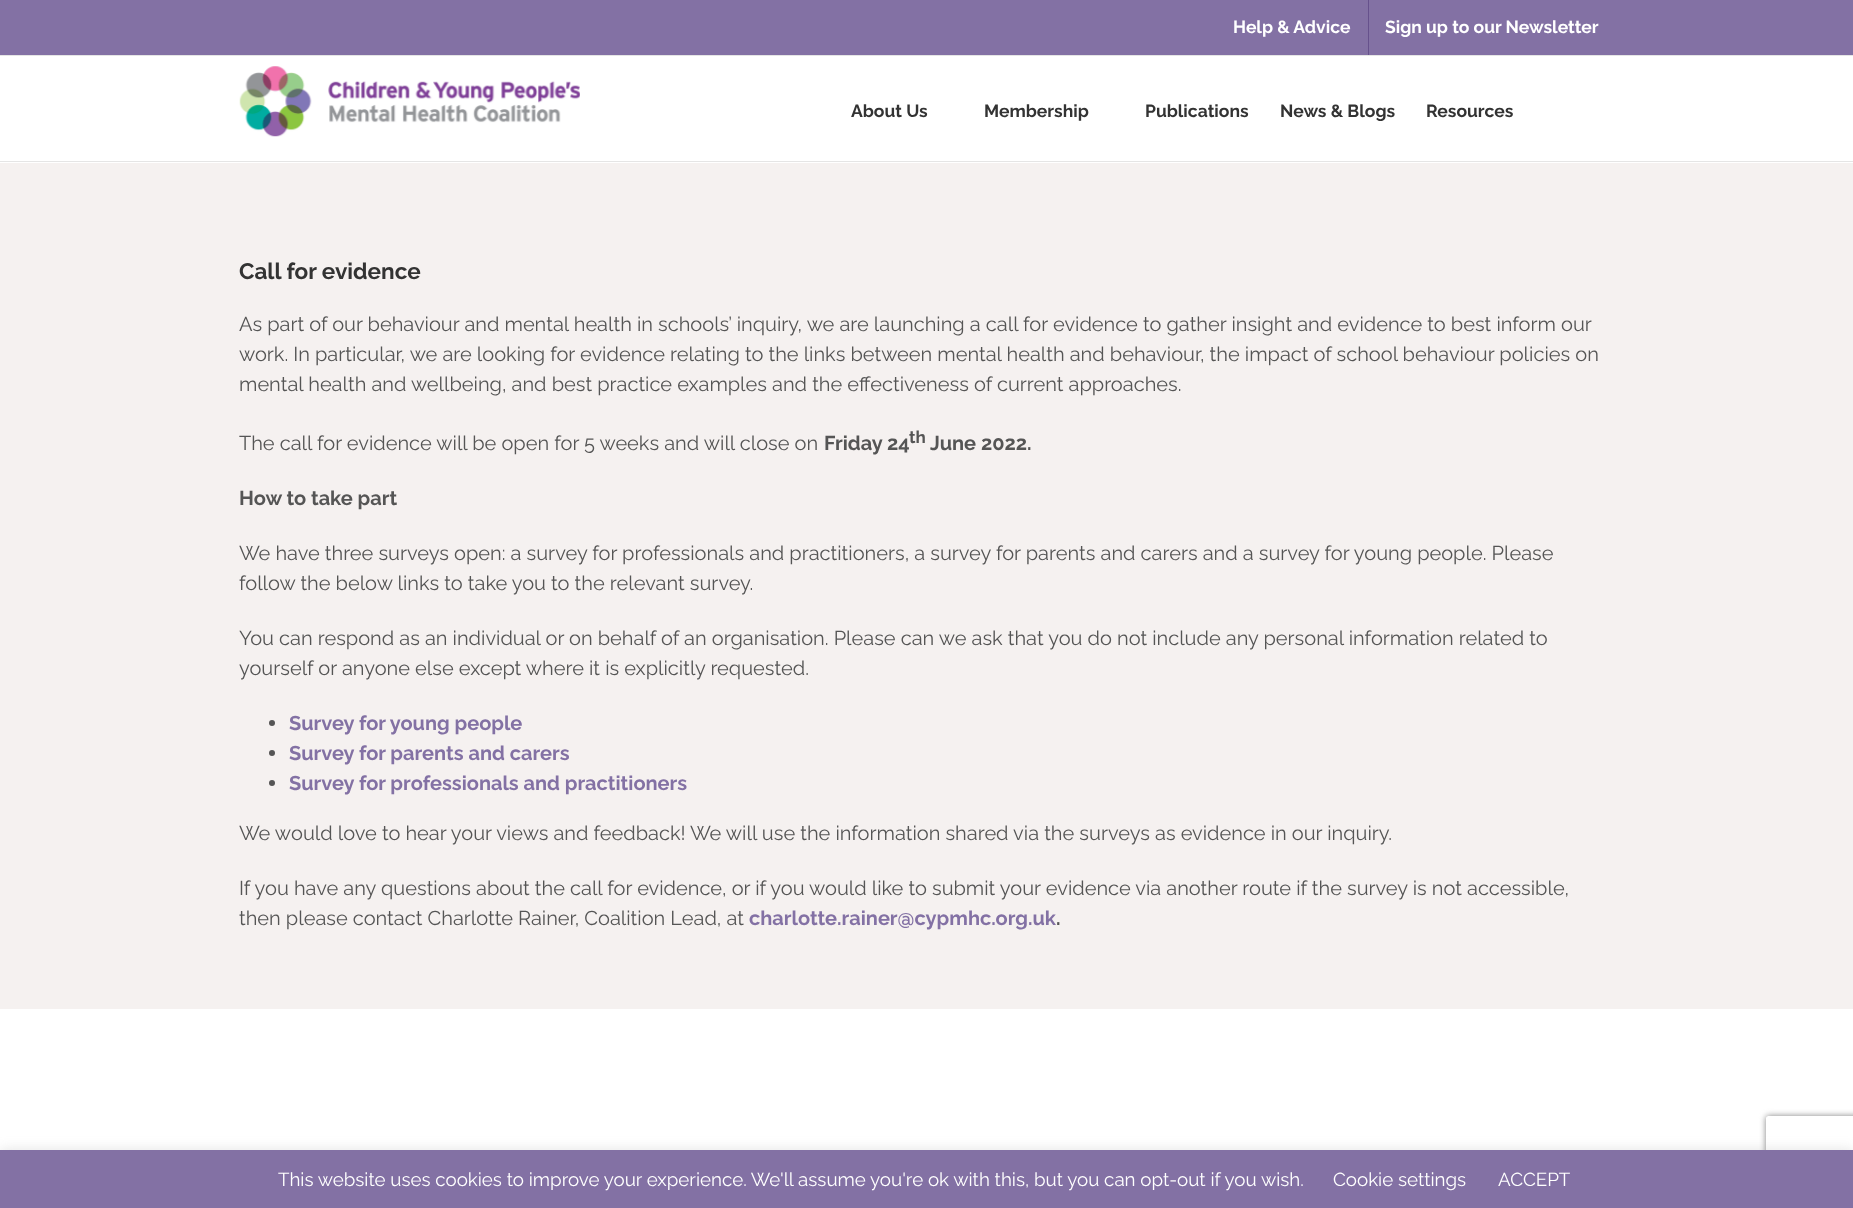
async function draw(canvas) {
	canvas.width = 1853;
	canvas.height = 1208;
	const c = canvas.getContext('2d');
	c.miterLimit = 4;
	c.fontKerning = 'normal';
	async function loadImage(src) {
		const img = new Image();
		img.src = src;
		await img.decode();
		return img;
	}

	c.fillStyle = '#f5f1f0';
	c.fillRect(0, 0, 1853, 1208);
	c.fillStyle = '#8371a4';
	c.fillRect(0, 0, 1853, 55);
	c.fillStyle = '#e5e5e5';
	c.fillRect(0, 55, 1853, 1);
	c.font = 'bold 17.5px Raleway';
	c.fillStyle = '#fff';
	c.fillText('Help & Advice', 1233, 33);
	c.fillStyle = '#66518c';
	c.fillRect(1368, 0, 1, 55);
	c.fillStyle = '#fff';
	c.fillText('Sign up to our Newsletter', 1385, 33);
	c.fillRect(0, 56, 1853, 107);
	c.fillStyle = '#e5e5e5';
	c.fillRect(0, 161, 1853, 1);
	c.drawImage(await loadImage('img1.png'), 239, 66, 341, 71);
	c.fillStyle = '#333';
	for (const [text, x, y] of [
		['About Us', 851, 117],
		['Membership', 984, 117],
		['Publications', 1145, 117],
		['News & Blogs', 1280, 117],
		['Resources', 1426, 117],
	]) {
		c.fillText(text, x, y);
	}
	c.font = 'bold 22.5px Raleway';
	c.fillText('Call for evidence', 239, 279);
	c.font = '20px Raleway';
	c.fillStyle = '#555';
	for (const [text, x, y] of [
		['As part of our behaviour and mental health in schools’ inquiry, we are launching a call for evidence to gather insight and evidence to best inform our', 239, 331],
		['work. In particular, we are looking for evidence relating to the links between mental health and behaviour, the impact of school behaviour policies on', 239, 361],
		['mental health and wellbeing, and best practice examples and the effectiveness of current approaches.', 239, 391],
		['The call for evidence will be open for 5 weeks and will close on', 239, 450],
	]) {
		c.fillText(text, x, y);
	}
	c.font = 'bold 20px Raleway';
	c.fillText('Friday 24', 824, 450);
	c.font = 'bold 17px Raleway';
	c.fillText('th', 909, 443);
	c.font = 'bold 20px Raleway';
	c.fillText('June 2022.', 930, 450);
	c.fillText('How to take part', 239, 505);
	c.font = '20px Raleway';
	for (const [text, x, y] of [
		['We have three surveys open: a survey for professionals and practitioners, a survey for parents and carers and a survey for young people. Please', 239, 560],
		['follow the below links to take you to the relevant survey.', 239, 590],
		['You can respond as an individual or on behalf of an organisation. Please can we ask that you do not include any personal information related to', 239, 645],
		['yourself or anyone else except where it is explicitly requested.', 239, 675],
	]) {
		c.fillText(text, x, y);
	}
	c.beginPath();
	c.arc(272, 723, 3, 0, 2 * Math.PI);
	c.fill();
	c.font = 'bold 20px Raleway';
	c.fillStyle = '#8371a4';
	c.fillText('Survey for young people', 289, 730);
	c.fillStyle = '#555';
	c.beginPath();
	c.arc(272, 753, 3, 0, 2 * Math.PI);
	c.fill();
	c.fillStyle = '#8371a4';
	c.fillText('Survey for parents and carers', 289, 760);
	c.fillStyle = '#555';
	c.beginPath();
	c.arc(272, 783, 3, 0, 2 * Math.PI);
	c.fill();
	c.fillStyle = '#8371a4';
	c.fillText('Survey for professionals and practitioners', 289, 790);
	c.font = '20px Raleway';
	c.fillStyle = '#555';
	for (const [text, x, y] of [
		['We w', 239, 840],
		['ould love to hear your views and feedback! We will use the information shared via the surveys as evidence in our inquiry.', 291, 840],
		['If you have any questions about the call for evidence, or if you would like to submit your evidence via another route if the survey is not accessible,', 239, 895],
		['then please contact Charlotte Rainer, Coalition Lead, at', 239, 925],
	]) {
		c.fillText(text, x, y);
	}
	c.font = 'bold 20px Raleway';
	c.fillStyle = '#8371a4';
	c.fillText('charlotte.rainer@cypmhc.org.uk', 749, 925);
	c.fillStyle = '#555';
	c.fillText('.', 1056, 925);
	c.fillStyle = '#fff';
	c.fillRect(0, 1009, 1853, 141);
	c.fillStyle = '#acabab4d';
	c.filter = 'blur(6px)';
	c.beginPath();
	c.rect(0, 1149, 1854, 59);
	c.fill();
	c.filter = 'none';
	c.save();
	c.beginPath();
	c.moveTo(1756, 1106);
	c.lineTo(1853, 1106);
	c.lineTo(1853, 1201);
	c.lineTo(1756, 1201);
	c.closePath();
	c.moveTo(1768.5, 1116);
	c.lineTo(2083.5, 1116);
	c.bezierCurveTo(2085, 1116, 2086, 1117, 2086, 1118.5);
	c.lineTo(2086, 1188.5);
	c.bezierCurveTo(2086, 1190, 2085, 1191, 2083.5, 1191);
	c.lineTo(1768.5, 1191);
	c.bezierCurveTo(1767, 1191, 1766, 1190, 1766, 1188.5);
	c.lineTo(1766, 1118.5);
	c.bezierCurveTo(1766, 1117, 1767, 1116, 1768.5, 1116);
	c.closePath();
	c.clip('evenodd');
	c.fillStyle = '#808080';
	c.filter = 'blur(3px)';
	c.beginPath();
	c.roundRect(1766, 1116, 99, 75, 2.5);
	c.fill();
	c.filter = 'none';
	c.restore();
	c.fillStyle = '#8371a4';
	c.fillRect(0, 1150, 1853, 58);
	c.font = '18.75px Raleway';
	c.fillStyle = '#fff';
	for (const [text, x, y] of [
		['This website uses cookies to improve your experience. We\'ll assume you\'re ok with this, but you can opt-out if you wish.', 278, 1186],
		['Cookie settings', 1333, 1186],
		['ACCEPT', 1498, 1186],
	]) {
		c.fillText(text, x, y);
	}
}

draw(document.querySelector('canvas'));
